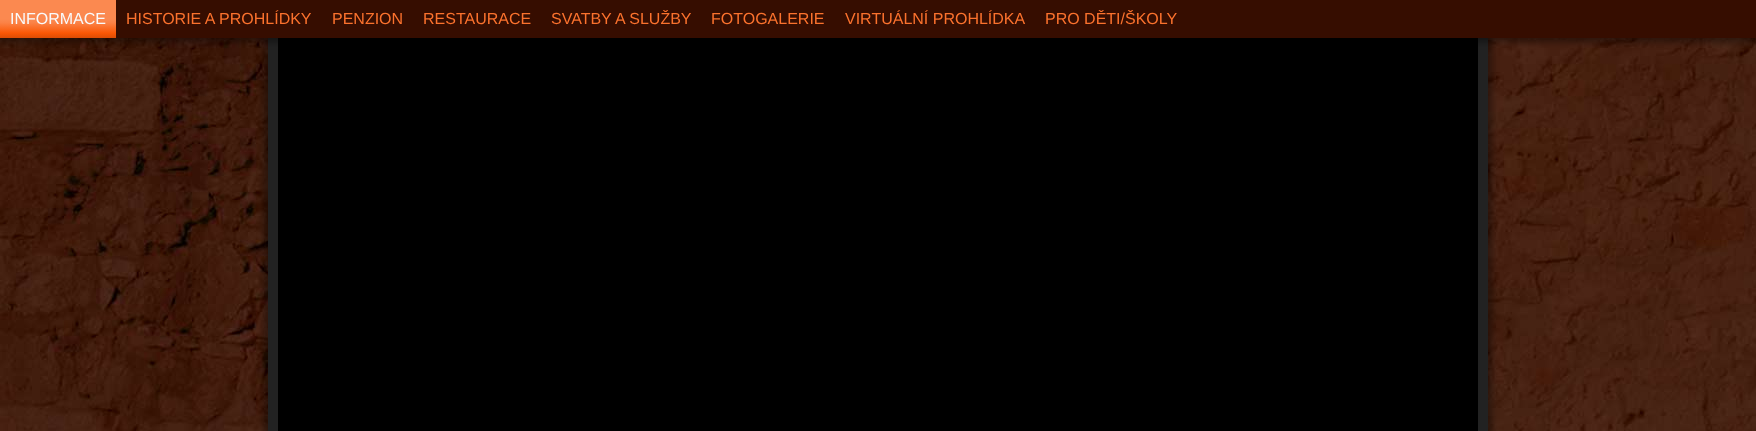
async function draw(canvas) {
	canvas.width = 1756;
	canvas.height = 431;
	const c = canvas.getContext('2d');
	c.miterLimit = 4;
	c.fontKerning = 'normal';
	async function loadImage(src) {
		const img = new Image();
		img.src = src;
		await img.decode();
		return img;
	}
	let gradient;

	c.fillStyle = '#fff';
	c.fillRect(0, 0, 1756, 431);
	c.drawImage(await loadImage('img1.png'), 0, 38, 1756, 393);
	c.fillStyle = '#00000066';
	c.filter = 'blur(3.5px)';
	c.beginPath();
	c.rect(264, 34, 1228, 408);
	c.fill();
	c.filter = 'none';
	c.fillStyle = '#222';
	c.fillRect(268, 38, 1220, 393);
	c.fillStyle = '#000';
	c.fillRect(278, 38, 1200, 393);
	c.fillStyle = '#00000066';
	c.filter = 'blur(3.5px)';
	c.beginPath();
	c.rect(-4, -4, 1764, 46);
	c.fill();
	c.filter = 'none';
	c.fillStyle = '#360d00';
	c.fillRect(116, 0, 1640, 38);
	gradient = c.createLinearGradient(58, 0, 58, 38);
	gradient.addColorStop(0, '#fb8950');
	gradient.addColorStop(0.5, '#fb8950');
	gradient.addColorStop(0.6, '#fb8246');
	gradient.addColorStop(0.87, '#fa5705');
	gradient.addColorStop(1, '#dc4c04');
	c.fillStyle = gradient;
	c.fillRect(0, 0, 116, 38);
	c.font = '16px Liberation Sans';
	c.fillStyle = '#f9fafb';
	c.fillText('INFORMACE', 10, 24);
	c.fillStyle = '#fb722d';
	for (const [text, x, y] of [
		['HISTORIE A PROHLÍDKY', 126, 24],
		['PENZION', 332, 24],
		['RESTAURACE', 423, 24],
		['SVATBY A SLUŽBY', 551, 24],
		['FOTOGALERIE', 711, 24],
		['VIRTUÁLNÍ PROHLÍDKA', 845, 24],
		['PRO DĚTI/ŠKOLY', 1045, 24],
	]) {
		c.fillText(text, x, y);
	}
}

draw(document.querySelector('canvas'));
